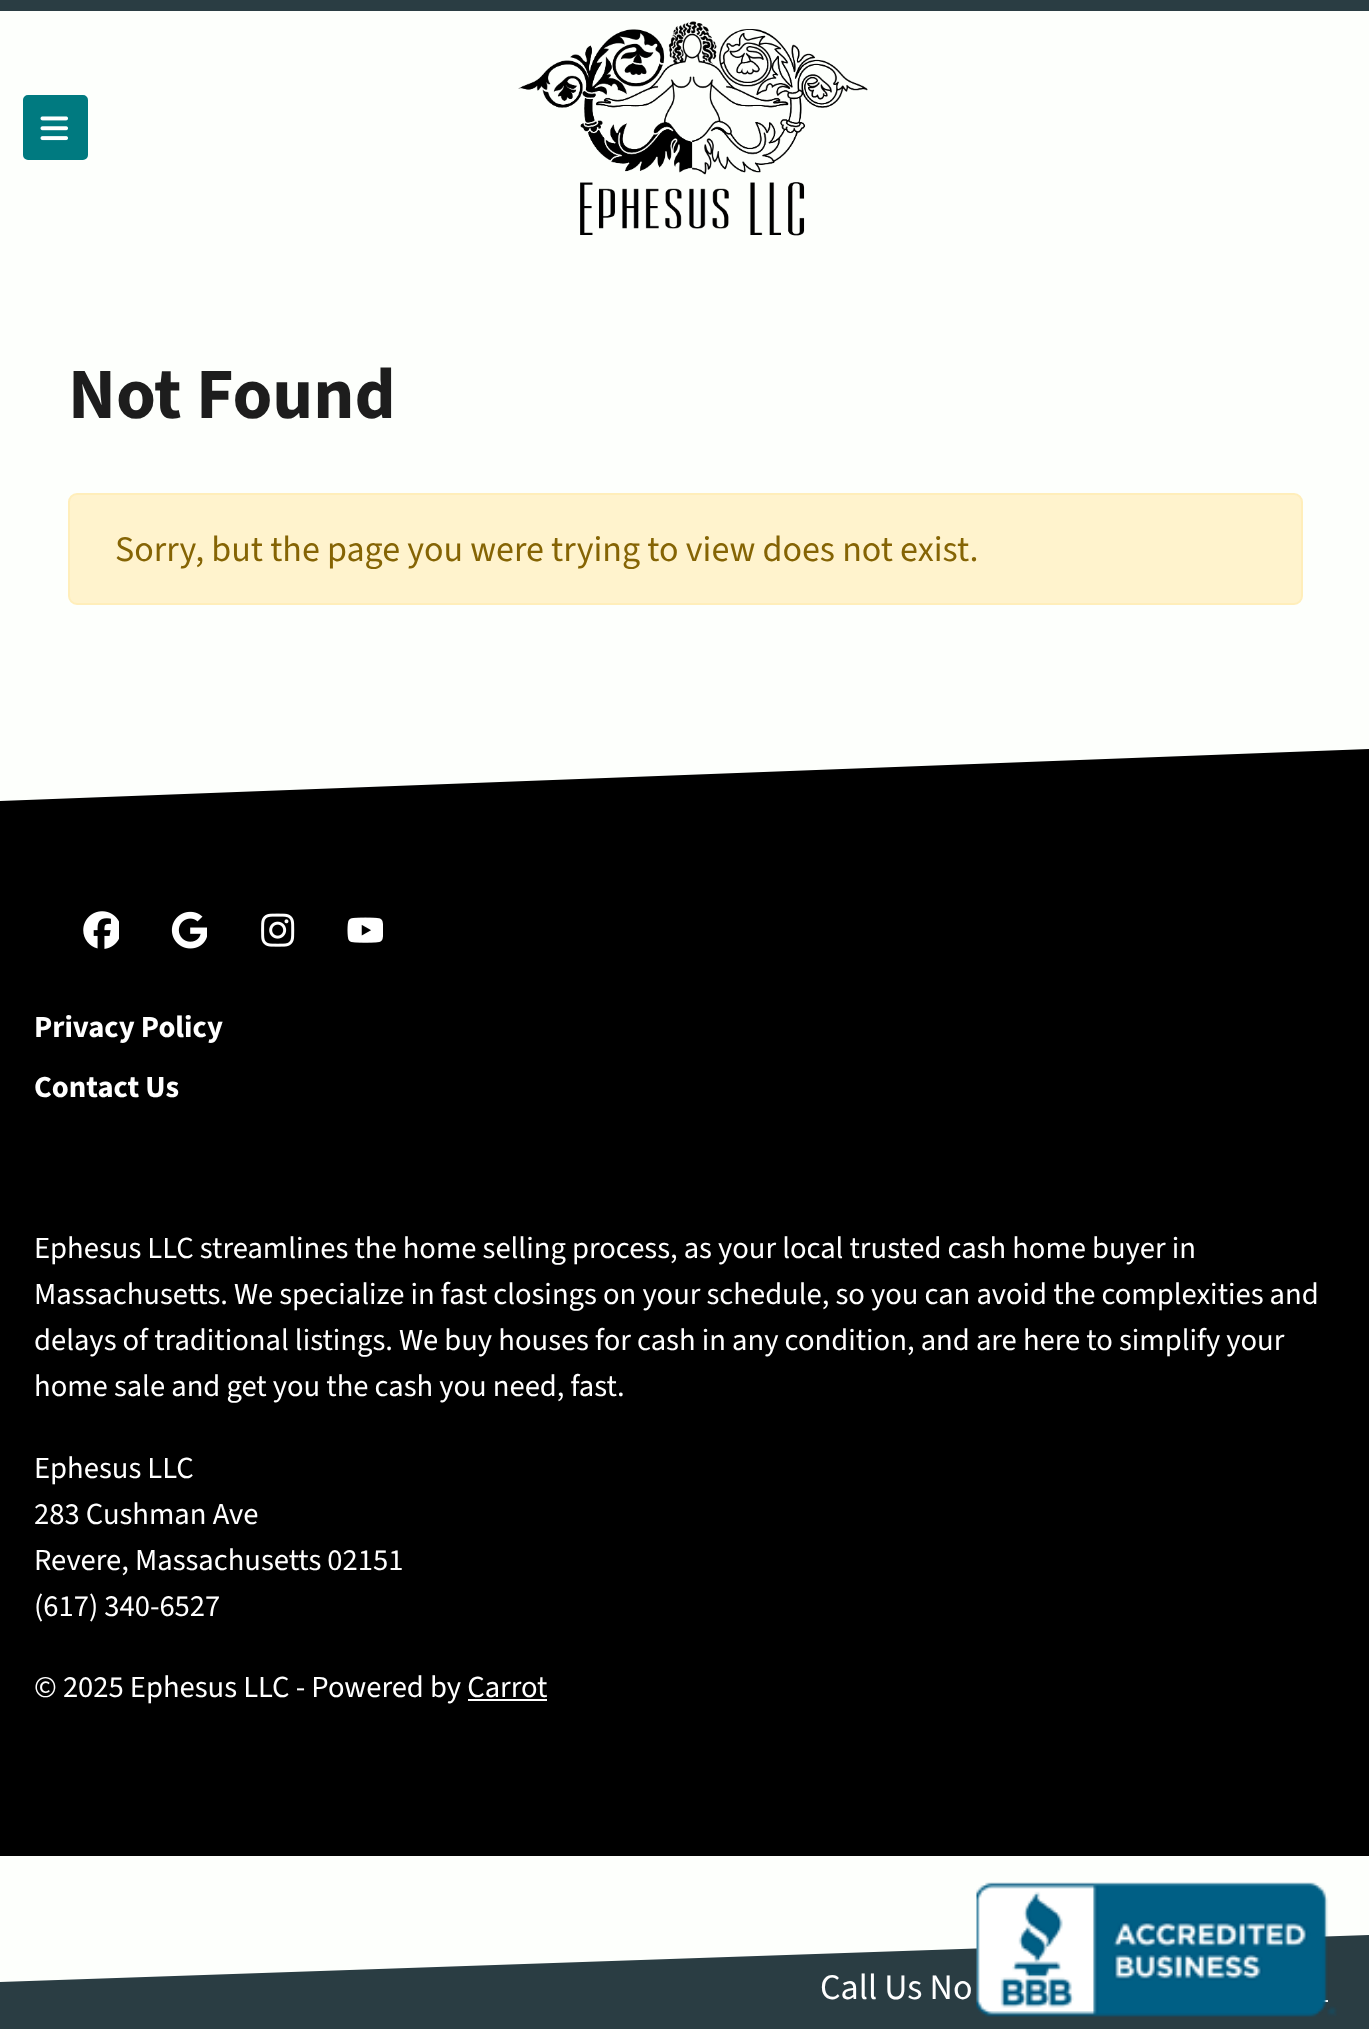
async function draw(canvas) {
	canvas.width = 1369;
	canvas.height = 2029;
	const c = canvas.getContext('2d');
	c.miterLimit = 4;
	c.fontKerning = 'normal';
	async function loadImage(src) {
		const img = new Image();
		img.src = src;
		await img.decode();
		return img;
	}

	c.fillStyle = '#fdfffc';
	c.fillRect(0, 0, 1369, 2029);
	c.fillStyle = '#2a3d43';
	c.fillRect(0, 0, 1369, 11);
	c.fillStyle = '#007a80';
	c.beginPath();
	c.roundRect(24, 96, 63, 63, 4);
	c.fill();
	c.strokeStyle = '#007a80';
	c.lineWidth = 2;
	c.stroke();
	c.drawImage(await loadImage('img1.png'), 40, 116, 28, 25);
	c.drawImage(await loadImage('img2.png'), 518, 21, 350, 215);
	c.font = 'bold 72px "Source Sans 3"';
	c.fillStyle = '#1d1d1d';
	c.fillText('Not Found', 68, 418);
	c.fillStyle = '#fff3cd';
	c.beginPath();
	c.roundRect(69, 494, 1233, 110, 8);
	c.fill();
	c.strokeStyle = '#ffeeba';
	c.stroke();
	c.font = '36px "Source Sans 3"';
	c.fillStyle = '#856404';
	c.fillText('Sorry, but the page you were trying to view does not exist.', 115, 561);
	c.fillStyle = '#000';
	c.fillRect(0, 749, 1369, 1107);
	c.save();
	c.beginPath();
	c.rect(0, 747, 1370, 56);
	c.clip();
	c.fillStyle = '#fdfffc';
	c.beginPath();
	c.moveTo(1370, 749);
	c.lineTo(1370, 746);
	c.lineTo(0, 746);
	c.lineTo(0, 801);
	c.closePath();
	c.fill();
	c.restore();
	c.drawImage(await loadImage('img3.png'), 83, 911, 36, 38);
	c.drawImage(await loadImage('img4.png'), 171, 911, 36, 38);
	c.drawImage(await loadImage('img5.png'), 261, 913, 34, 34);
	c.drawImage(await loadImage('img6.png'), 347, 917, 36, 26);
	c.font = 'bold 30.6px "Source Sans 3"';
	c.fillStyle = '#fff';
	c.fillText('Privacy Policy', 34, 1037);
	c.fillText('Contact Us', 34, 1097);
	c.font = '30.6px "Source Sans 3"';
	for (const [text, x, y] of [
		['Ephesus LLC streamlines the home selling process, as your local trusted cash home buyer in', 34, 1258],
		['Massachusetts. We specialize in fast closings on your schedule, so you can avoid the complexities and', 34, 1304],
		['delays of traditional listings. We buy houses for cash in any condition, and are here to simplify your', 34, 1350],
		['home sale and get you the cash you need, fast.', 34, 1396],
		['Ephesus LLC', 34, 1478],
		['283 Cushman Ave', 34, 1524],
		['Revere, Massachusetts 02151', 34, 1570],
		['(617) 340-6527', 34, 1616],
		['© 2025 Ephesus LLC - Powered by Carrot', 34, 1697],
	]) {
		c.fillText(text, x, y);
	}
	c.fillRect(468, 1699, 79, 2);
	c.fillStyle = '#2a3d43';
	c.beginPath();
	c.moveTo(0, 1982);
	c.lineTo(0, 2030);
	c.lineTo(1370, 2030);
	c.lineTo(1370, 1935);
	c.closePath();
	c.fill();
	c.font = '36px "Source Sans 3"';
	c.fillStyle = '#fff';
	c.fillText('Call Us No', 820, 1999);
	c.fillRect(1322, 2000, 6, 2);
	c.drawImage(await loadImage('img7.png'), 976, 1882, 361, 135);
}

draw(document.querySelector('canvas'));
